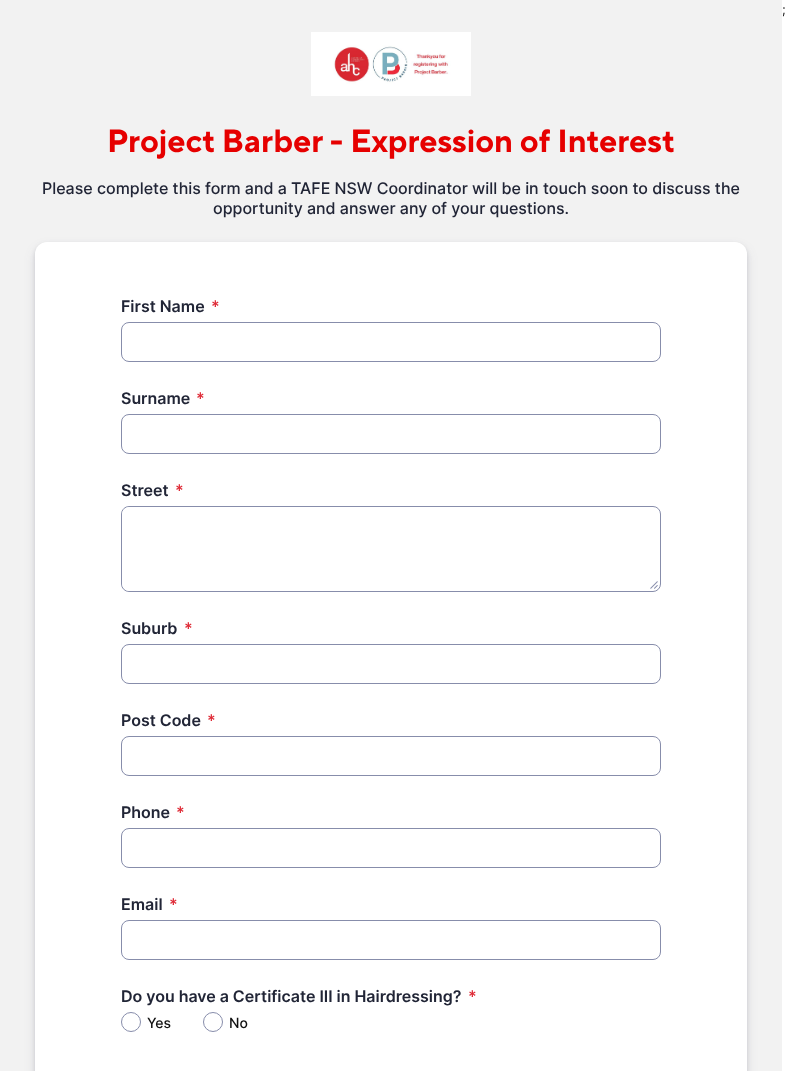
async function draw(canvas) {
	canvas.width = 786;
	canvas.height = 1071;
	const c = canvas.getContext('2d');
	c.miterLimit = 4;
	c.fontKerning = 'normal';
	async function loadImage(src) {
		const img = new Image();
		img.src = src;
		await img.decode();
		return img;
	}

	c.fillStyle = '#fff';
	c.fillRect(0, 0, 786, 1071);
	c.font = '13px Inter';
	c.fillStyle = '#111';
	c.fillText(';', 782, 14);
	c.fillStyle = '#f2f2f2';
	c.fillRect(0, 0, 782, 1071);
	c.drawImage(await loadImage('img1.png'), 311, 32, 160, 64);
	c.font = 'bold 32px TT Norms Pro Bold';
	c.fillStyle = '#e60000';
	c.fillText('Project Barber - Expression of Interest', 107, 152);
	c.font = '500 16px Inter';
	c.fillStyle = '#212536';
	c.fillText('Please complete this form and a TAFE NSW Coordinator will be in touch soon to discuss the', 42, 194);
	c.fillText('opportunity and answer any of your questions.', 213, 214);
	c.fillStyle = '#363c5429';
	c.filter = 'blur(2px)';
	c.beginPath();
	c.roundRect(35, 244, 712, 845, 12);
	c.fill();
	c.filter = 'none';
	c.fillStyle = '#363c541f';
	c.filter = 'blur(6px)';
	c.beginPath();
	c.roundRect(35, 248, 712, 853, 12);
	c.fill();
	c.filter = 'none';
	c.fillStyle = '#fff';
	c.beginPath();
	c.roundRect(35, 242, 712, 829, [12, 12, 0, 0]);
	c.fill();
	c.font = '600 16px Inter';
	c.fillStyle = '#212536';
	c.fillText('First Name', 121, 312);
	c.fillStyle = '#df2a36';
	c.fillText('*', 211, 312);
	c.beginPath();
	c.roundRect(121.5, 322.5, 539, 39, 7.5);
	c.strokeStyle = '#878dab';
	c.stroke();
	c.fillStyle = '#212536';
	c.fillText('Surname', 121, 404);
	c.fillStyle = '#df2a36';
	c.fillText('*', 196, 404);
	c.beginPath();
	c.roundRect(121.5, 414.5, 539, 39, 7.5);
	c.stroke();
	c.fillStyle = '#212536';
	c.fillText('Street', 121, 496);
	c.fillStyle = '#df2a36';
	c.fillText('*', 175, 496);
	c.beginPath();
	c.roundRect(121.5, 506.5, 539, 85, 7.5);
	c.stroke();
	c.fillStyle = '#fff';
	c.beginPath();
	c.roundRect(122, 507, 534, 84, 8);
	c.fill();
	c.drawImage(await loadImage('img2.png'), 650, 581, 8, 8);
	c.fillStyle = '#212536';
	c.fillText('Suburb', 121, 634);
	c.fillStyle = '#df2a36';
	c.fillText('*', 184, 634);
	c.beginPath();
	c.roundRect(121.5, 644.5, 539, 39, 7.5);
	c.stroke();
	c.fillStyle = '#212536';
	c.fillText('Post Code', 121, 726);
	c.fillStyle = '#df2a36';
	c.fillText('*', 207, 726);
	c.beginPath();
	c.roundRect(121.5, 736.5, 539, 39, 7.5);
	c.stroke();
	c.fillStyle = '#212536';
	c.fillText('Phone', 121, 818);
	c.fillStyle = '#df2a36';
	c.fillText('*', 176, 818);
	c.beginPath();
	c.roundRect(121.5, 828.5, 539, 39, 7.5);
	c.stroke();
	c.fillStyle = '#212536';
	c.fillText('Email', 121, 910);
	c.fillStyle = '#df2a36';
	c.fillText('*', 169, 910);
	c.beginPath();
	c.roundRect(121.5, 920.5, 539, 39, 7.5);
	c.stroke();
	c.fillStyle = '#212536';
	c.fillText('Do you have a Certificate III in Hairdressing?', 121, 1002);
	c.fillStyle = '#df2a36';
	c.fillText('*', 468, 1002);
	c.beginPath();
	c.arc(131, 1022, 9.5, 0, 2 * Math.PI);
	c.stroke();
	c.font = '500 14px Inter';
	c.fillStyle = '#111';
	c.fillText('Yes', 147, 1028);
	c.beginPath();
	c.arc(213, 1022, 9.5, 0, 2 * Math.PI);
	c.stroke();
	c.fillText('No', 229, 1028);
}

draw(document.querySelector('canvas'));
